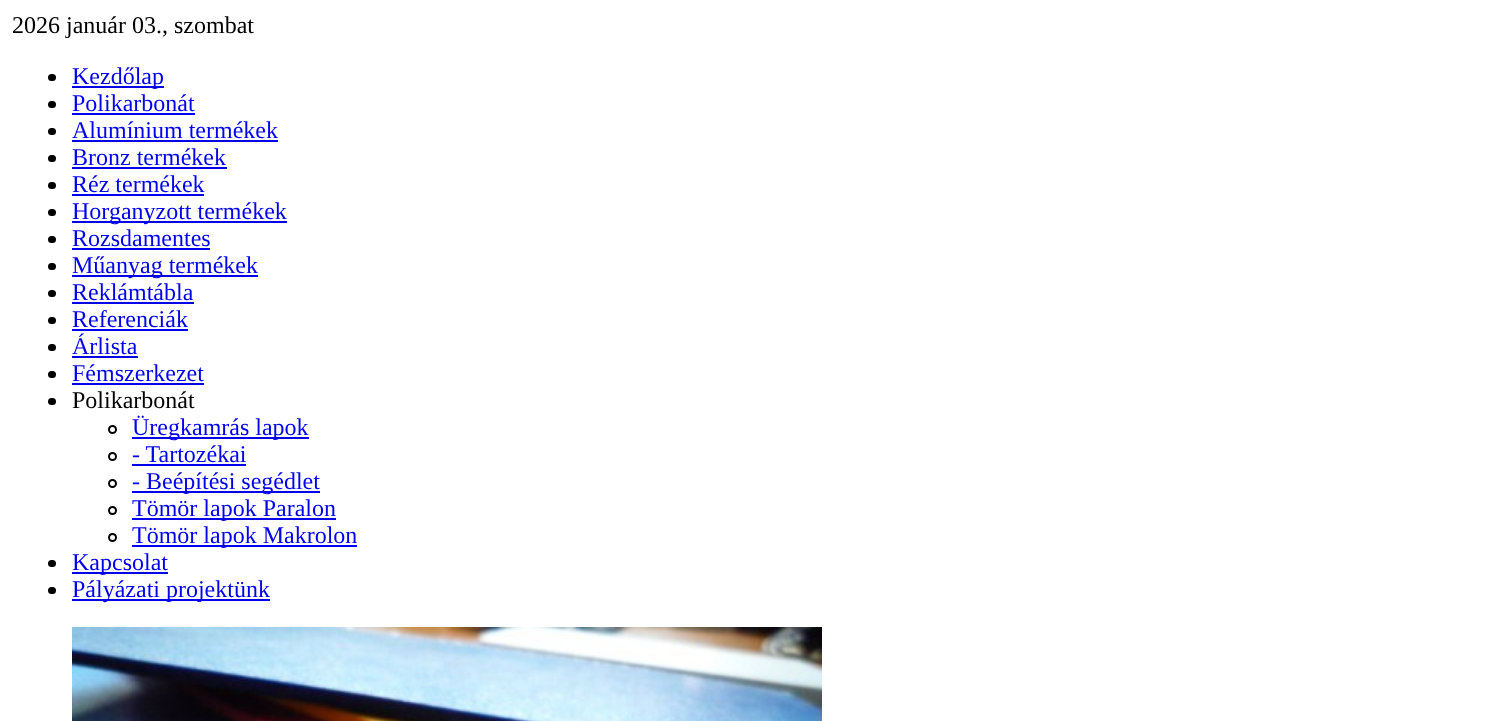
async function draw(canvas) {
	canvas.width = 1512;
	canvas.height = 721;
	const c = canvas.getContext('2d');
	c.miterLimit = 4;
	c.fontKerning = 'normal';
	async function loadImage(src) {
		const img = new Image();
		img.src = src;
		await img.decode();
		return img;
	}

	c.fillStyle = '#fff';
	c.fillRect(0, 0, 1512, 721);
	c.font = '24px Liberation Serif';
	c.fillStyle = '#000';
	c.fillText('2026 január 03., szombat', 12, 33);
	c.beginPath();
	c.roundRect(48, 74, 8, 7, 3.5);
	c.fill();
	c.fillStyle = '#00e';
	c.fillRect(72, 86, 92, 2);
	c.fillText('Kezdőlap', 72, 84);
	c.fillStyle = '#000';
	c.beginPath();
	c.roundRect(48, 101, 8, 7, 3.5);
	c.fill();
	c.fillStyle = '#00e';
	c.fillText('Polikarbonát', 72, 111);
	c.fillRect(72, 113, 123, 2);
	c.fillStyle = '#000';
	c.beginPath();
	c.roundRect(48, 128, 8, 7, 3.5);
	c.fill();
	c.fillStyle = '#00e';
	c.fillText('Alumínium termékek', 72, 138);
	c.fillRect(72, 140, 206, 2);
	c.fillStyle = '#000';
	c.beginPath();
	c.roundRect(48, 155, 8, 7, 3.5);
	c.fill();
	c.fillStyle = '#00e';
	c.fillText('Bronz termékek', 72, 165);
	c.fillRect(72, 167, 155, 2);
	c.fillStyle = '#000';
	c.beginPath();
	c.roundRect(48, 182, 8, 7, 3.5);
	c.fill();
	c.fillStyle = '#00e';
	c.fillText('Réz termékek', 72, 192);
	c.fillRect(72, 194, 132, 2);
	c.fillStyle = '#000';
	c.beginPath();
	c.roundRect(48, 209, 8, 7, 3.5);
	c.fill();
	c.fillStyle = '#00e';
	c.fillRect(72, 221, 215, 2);
	c.fillText('Horganyzott termékek', 72, 219);
	c.fillStyle = '#000';
	c.beginPath();
	c.roundRect(48, 236, 8, 7, 3.5);
	c.fill();
	c.fillStyle = '#00e';
	c.fillText('Rozsdamentes', 72, 246);
	c.fillRect(72, 248, 138, 2);
	c.fillStyle = '#000';
	c.beginPath();
	c.roundRect(48, 263, 8, 7, 3.5);
	c.fill();
	c.fillStyle = '#00e';
	c.fillRect(72, 275, 186, 2);
	c.fillText('Műanyag termékek', 72, 273);
	c.fillStyle = '#000';
	c.beginPath();
	c.roundRect(48, 290, 8, 7, 3.5);
	c.fill();
	c.fillStyle = '#00e';
	c.fillText('Reklámtábla', 72, 300);
	c.fillRect(72, 302, 122, 2);
	c.fillStyle = '#000';
	c.beginPath();
	c.roundRect(48, 317, 8, 7, 3.5);
	c.fill();
	c.fillStyle = '#00e';
	c.fillText('Referenciák', 72, 327);
	c.fillRect(72, 329, 116, 2);
	c.fillStyle = '#000';
	c.beginPath();
	c.roundRect(48, 344, 8, 7, 3.5);
	c.fill();
	c.fillStyle = '#00e';
	c.fillText('Árlista', 72, 354);
	c.fillRect(72, 356, 66, 2);
	c.fillStyle = '#000';
	c.beginPath();
	c.roundRect(48, 371, 8, 7, 3.5);
	c.fill();
	c.fillStyle = '#00e';
	c.fillText('Fémszerkezet', 72, 381);
	c.fillRect(72, 383, 132, 2);
	c.fillStyle = '#000';
	c.beginPath();
	c.roundRect(48, 398, 8, 7, 3.5);
	c.fill();
	c.fillText('Polikarbonát', 72, 408);
	c.beginPath();
	c.arc(112.5, 429.5, 3.5, 0, 2 * Math.PI);
	c.strokeStyle = '#000';
	c.lineWidth = 2;
	c.stroke();
	c.fillStyle = '#00e';
	c.fillRect(132, 437, 177, 2);
	c.fillText('Üregkamrás lapok', 132, 435);
	c.beginPath();
	c.arc(112.5, 456.5, 3.5, 0, 2 * Math.PI);
	c.stroke();
	c.fillText('- Tartozékai', 132, 462);
	c.fillRect(132, 464, 114, 2);
	c.beginPath();
	c.arc(112.5, 483.5, 3.5, 0, 2 * Math.PI);
	c.stroke();
	c.fillRect(132, 491, 188, 2);
	c.fillText('- Beépítési segédlet', 132, 489);
	c.beginPath();
	c.arc(112.5, 510.5, 3.5, 0, 2 * Math.PI);
	c.stroke();
	c.fillRect(132, 518, 204, 2);
	c.fillText('Tömör lapok Paralon', 132, 516);
	c.beginPath();
	c.arc(112.5, 537.5, 3.5, 0, 2 * Math.PI);
	c.stroke();
	c.fillRect(132, 545, 225, 2);
	c.fillText('Tömör lapok Makrolon', 132, 543);
	c.fillStyle = '#000';
	c.beginPath();
	c.roundRect(48, 560, 8, 7, 3.5);
	c.fill();
	c.fillStyle = '#00e';
	c.fillRect(72, 572, 96, 2);
	c.fillText('Kapcsolat', 72, 570);
	c.fillStyle = '#000';
	c.beginPath();
	c.roundRect(48, 587, 8, 7, 3.5);
	c.fill();
	c.fillStyle = '#00e';
	c.fillRect(72, 599, 198, 2);
	c.fillText('Pályázati projektünk', 72, 597);
	c.drawImage(await loadImage('img1.png'), 72, 627, 750, 94);
}

draw(document.querySelector('canvas'));
